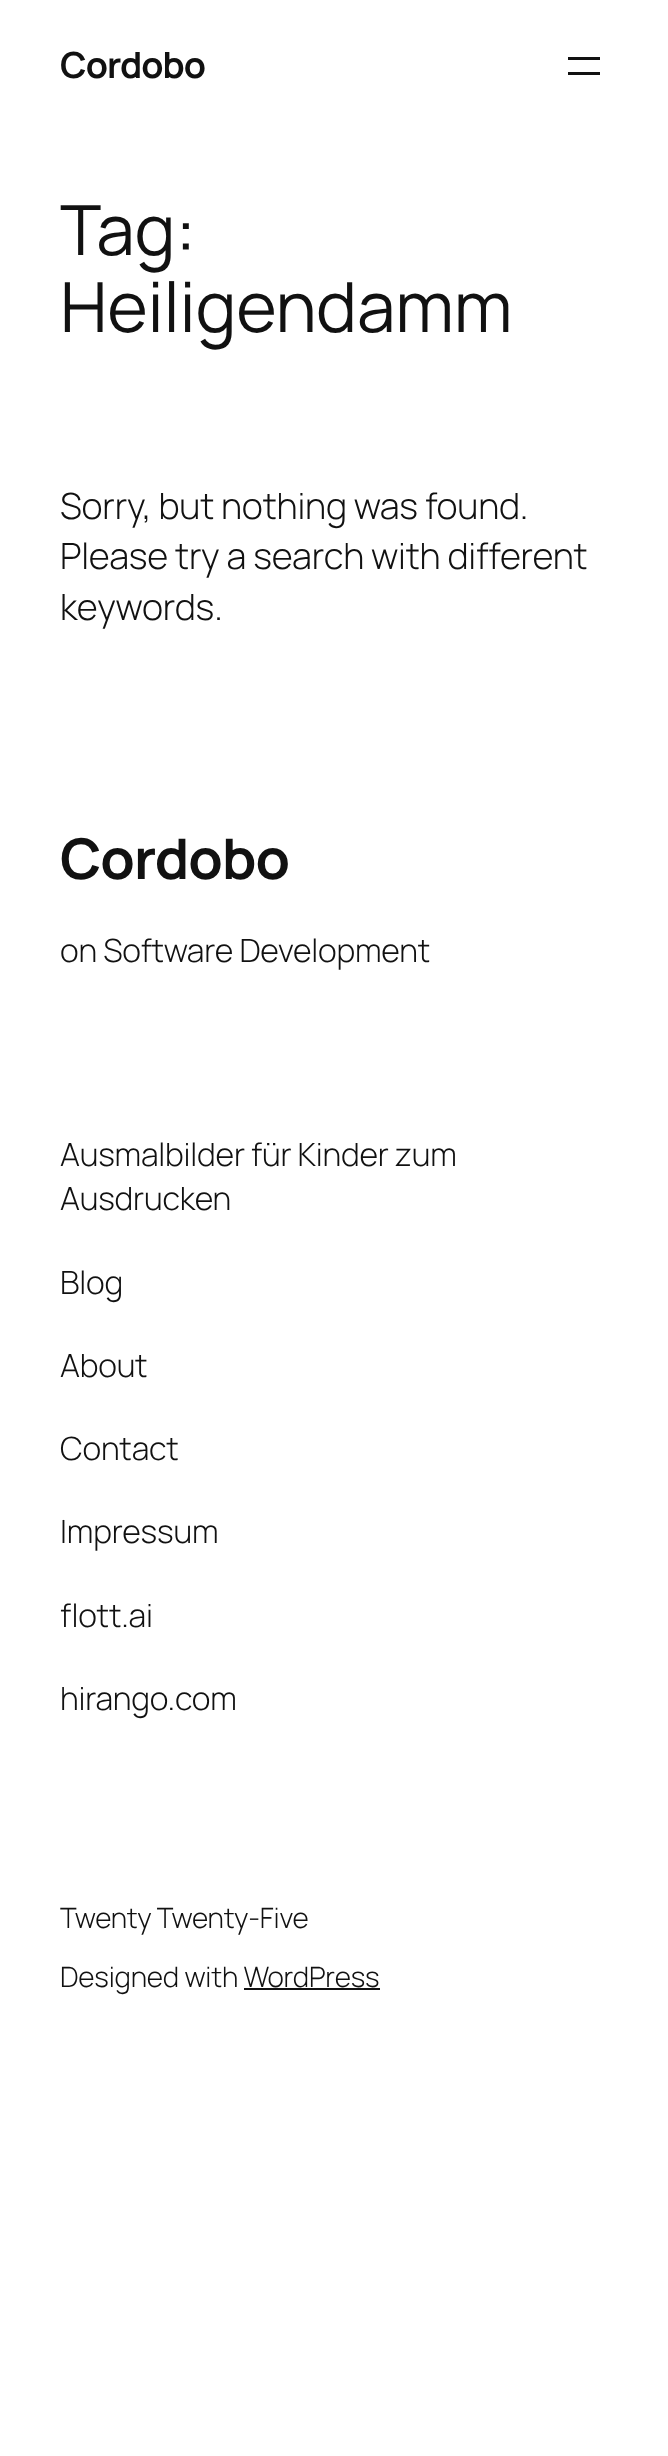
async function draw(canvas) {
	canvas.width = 668;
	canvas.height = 2456;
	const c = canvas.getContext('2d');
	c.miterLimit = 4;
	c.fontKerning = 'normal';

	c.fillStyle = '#fff';
	c.fillRect(0, 0, 668, 2456);
	c.letterSpacing = '-1px';
	c.font = 'bold 36.1px Manrope';
	c.fillStyle = '#111';
	c.fillText('Cordobo', 60, 78);
	c.fillRect(568, 57, 32, 3);
	c.fillRect(568, 72, 32, 3);
	c.letterSpacing = '-0.2px';
	c.font = '69.25px Manrope';
	c.fillText('Tag:', 60, 255);
	c.fillText('Heiligendamm', 60, 332);
	c.font = '300 36.1px Manrope';
	for (const [text, x, y] of [
		['Sorry, but nothing was found.', 60, 519],
		['Please try a search with different', 60, 569],
		['keywords.', 60, 620],
	]) {
		c.fillText(text, x, y);
	}
	c.letterSpacing = '-1px';
	c.font = 'bold 56px Manrope';
	c.fillText('Cordobo', 60, 879);
	c.letterSpacing = '-0.2px';
	c.font = '300 32px Manrope';
	for (const [text, x, y] of [
		['on Software Development', 60, 962],
		['Ausmalbilder für Kinder zum', 60, 1166],
		['Ausdrucken', 60, 1210],
		['Blog', 60, 1294],
		['About', 60, 1377],
		['Contact', 60, 1460],
		['Impressum', 60, 1543],
		['flott.ai', 60, 1627],
		['hirango.com', 60, 1710],
	]) {
		c.fillText(text, x, y);
	}
	c.font = '300 28px Manrope';
	c.fillText('Twenty Twenty-Five', 60, 1928);
	c.fillText('Designed with WordPress', 60, 1987);
	c.fillRect(244, 1988, 136, 2);
}

draw(document.querySelector('canvas'));
